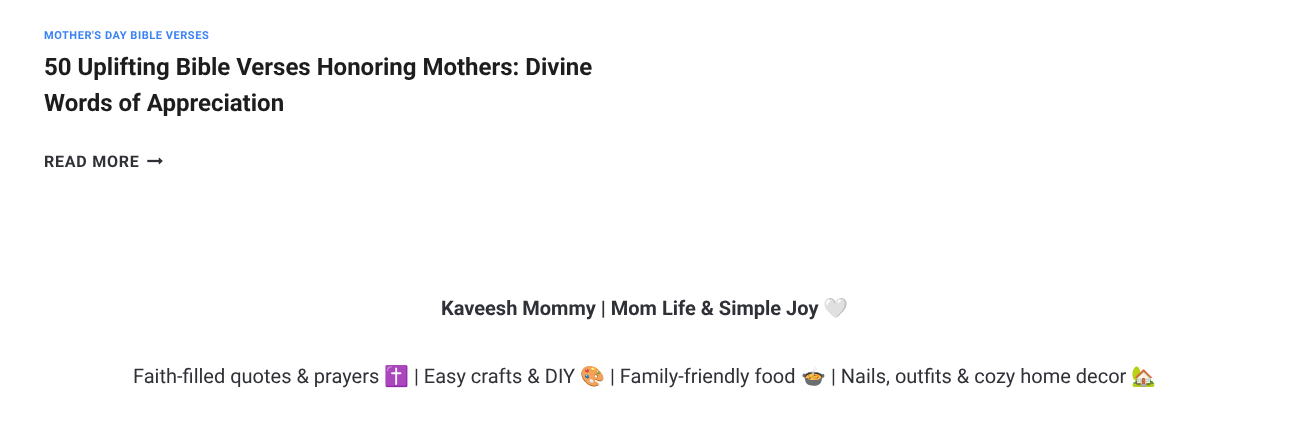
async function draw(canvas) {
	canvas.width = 1289;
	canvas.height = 442;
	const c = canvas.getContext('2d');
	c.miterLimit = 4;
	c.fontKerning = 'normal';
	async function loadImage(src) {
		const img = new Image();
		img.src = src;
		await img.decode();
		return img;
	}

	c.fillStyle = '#fff';
	c.fillRect(0, 0, 1289, 442);
	c.letterSpacing = '0.55px';
	c.font = 'bold 11px Roboto';
	c.fillStyle = '#3b82f6';
	c.fillText('MOTHER\'S DAY BIBLE VERSES', 44, 39);
	c.letterSpacing = '0px';
	c.font = 'bold 24px Roboto';
	c.fillStyle = '#1d1d1d';
	c.fillText('50 Uplifting Bible Verses Honoring Mothers: Divine', 44, 75);
	c.fillText('Words of Appreciation', 44, 111);
	c.letterSpacing = '0.75px';
	c.font = 'bold 16px Roboto';
	c.fillStyle = '#2f3137';
	c.fillText('READ MORE', 44, 167);
	c.drawImage(await loadImage('img1.png'), 147, 157, 16, 8);
	c.letterSpacing = '0px';
	c.font = 'bold 20px Roboto';
	c.fillText('Kaveesh Mommy | Mom Life & Simple Joy', 441, 315);
	c.font = 'bold 20px Noto Color Emoji';
	c.fillText('🤍', 823, 315);
	c.font = '20px Roboto';
	c.fillText('Faith-filled quotes & prayers', 133, 383);
	c.font = '20px Noto Color Emoji';
	c.fillText('✝️', 384, 383);
	c.font = '20px Roboto';
	c.fillText('| Easy crafts & DIY', 414, 383);
	c.font = '20px Noto Color Emoji';
	c.fillText('🎨', 580, 383);
	c.font = '20px Roboto';
	c.fillText('| Family-friendly food', 610, 383);
	c.font = '20px Noto Color Emoji';
	c.fillText('🍲', 801, 383);
	c.font = '20px Roboto';
	c.fillText('| Nails, outfits & cozy home decor', 831, 383);
	c.font = '20px Noto Color Emoji';
	c.fillText('🏡', 1131, 383);
}

draw(document.querySelector('canvas'));
